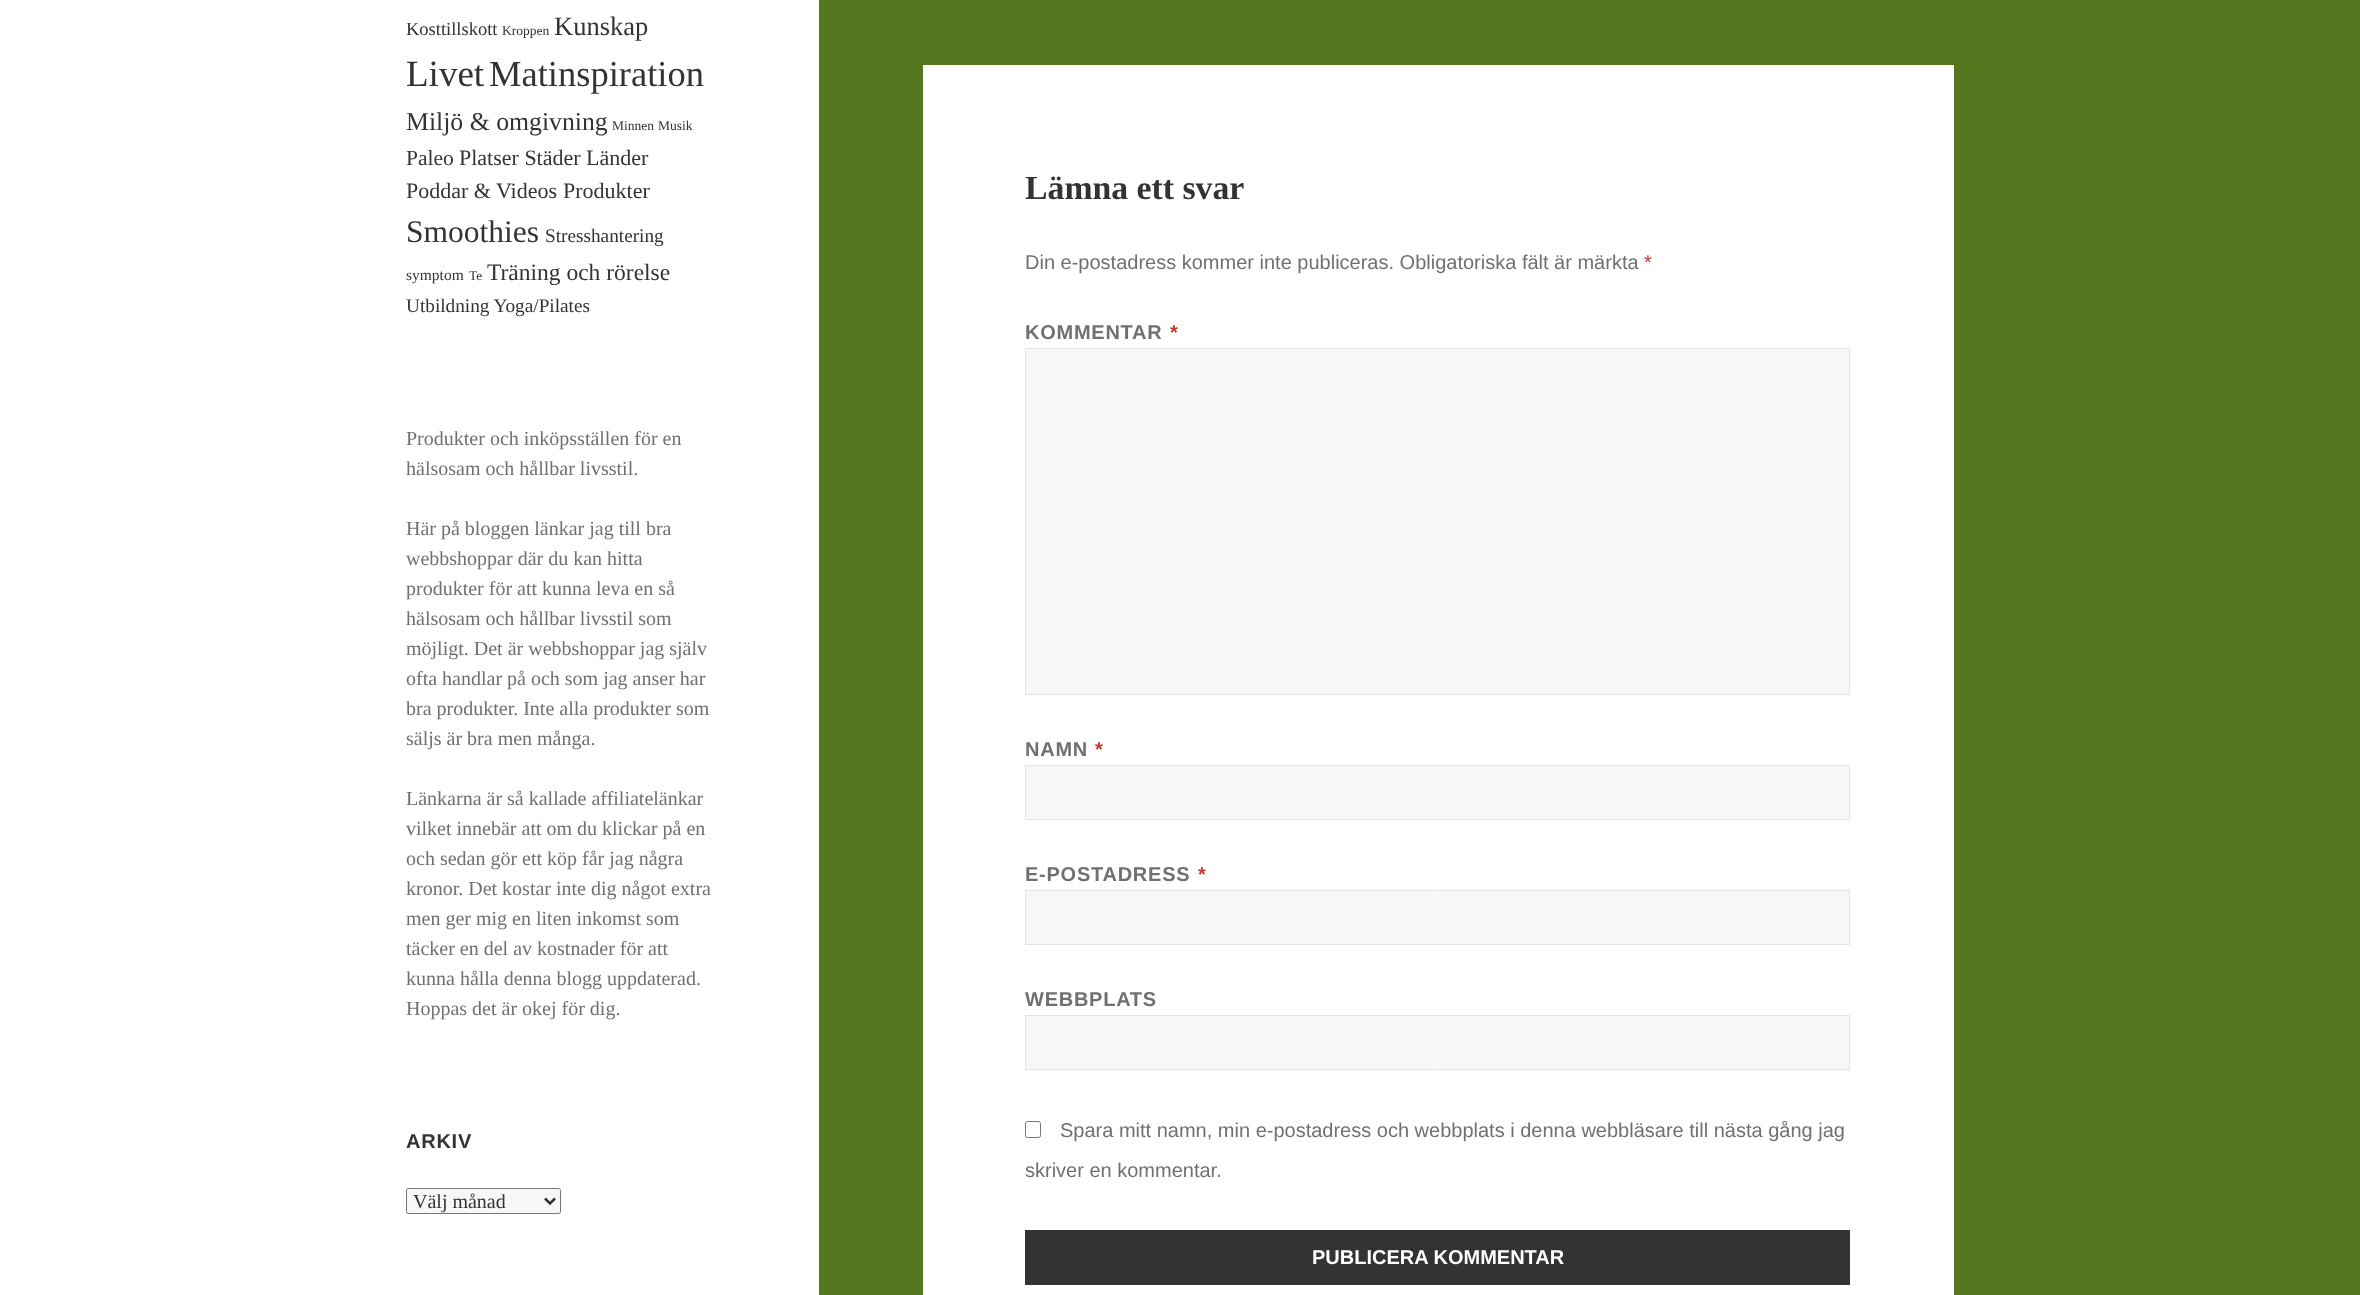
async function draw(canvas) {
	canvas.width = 2360;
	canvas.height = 1295;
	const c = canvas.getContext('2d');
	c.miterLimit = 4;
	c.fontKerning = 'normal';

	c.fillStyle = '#55771f';
	c.fillRect(0, 0, 2360, 1295);
	c.fillStyle = '#fff';
	c.fillRect(0, 0, 819, 1295);
	c.font = '18.5px Liberation Serif';
	c.fillStyle = '#333';
	c.fillText('Kosttillskott', 406, 35);
	c.font = '13.5px Liberation Serif';
	c.fillText('Kroppen', 502, 35);
	c.font = '26.5px Liberation Serif';
	c.fillText('Kunskap', 554, 35);
	c.font = '37px Liberation Serif';
	c.fillText('Livet', 406, 86);
	c.font = '36.5px Liberation Serif';
	c.fillText('Matinspiration', 489, 86);
	c.font = '25.75px Liberation Serif';
	c.fillText('Miljö & omgivning', 406, 130);
	c.font = '13.5px Liberation Serif';
	c.fillText('Minnen', 612, 130);
	c.fillText('Musik', 658, 130);
	c.font = '21.5px Liberation Serif';
	c.fillText('Paleo', 406, 165);
	c.font = '22px Liberation Serif';
	for (const [text, x, y] of [
		['Platser Städer Länder', 459, 165],
		['Poddar & Videos', 406, 198],
		['Produkter', 563, 198],
	]) {
		c.fillText(text, x, y);
	}
	c.font = '31.5px Liberation Serif';
	c.fillText('Smoothies', 406, 242);
	c.font = '19.25px Liberation Serif';
	c.fillText('Stresshantering', 545, 242);
	c.font = '15.5px Liberation Serif';
	c.fillText('symptom', 406, 280);
	c.font = '13.5px Liberation Serif';
	c.fillText('Te', 469, 280);
	c.font = '23.5px Liberation Serif';
	c.fillText('Träning och rörelse', 487, 280);
	c.font = '19.25px Liberation Serif';
	c.fillText('Utbildning Yoga/Pilates', 406, 312);
	c.font = '20px Liberation Serif';
	c.fillStyle = '#707070';
	for (const [text, x, y] of [
		['Produkter och inköpsställen för en', 406, 445],
		['hälsosam och hållbar livsstil.', 406, 475],
		['Här på bloggen länkar jag till bra', 406, 535],
		['webbshoppar där du kan hitta', 406, 565],
		['produkter för att kunna leva en så', 406, 595],
		['hälsosam och hållbar livsstil som', 406, 625],
		['möjligt. Det är webbshoppar jag själv', 406, 655],
		['ofta handlar på och som jag anser har', 406, 685],
		['bra produkter. Inte alla produkter som', 406, 715],
		['säljs är bra men många.', 406, 745],
		['Länkarna är så kallade affiliatelänkar', 406, 805],
		['vilket innebär att om du klickar på en', 406, 835],
		['och sedan gör ett köp får jag några', 406, 865],
		['kronor. Det kostar inte dig något extra', 406, 895],
		['men ger mig en liten inkomst som', 406, 925],
		['täcker en del av kostnader för att', 406, 955],
		['kunna hålla denna blogg uppdaterad.', 406, 985],
		['Hoppas det är okej för dig.', 406, 1015],
	]) {
		c.fillText(text, x, y);
	}
	c.letterSpacing = '0.75px';
	c.font = 'bold 20px Liberation Sans';
	c.fillStyle = '#333';
	c.fillText('ARKIV', 406, 1148);
	c.fillStyle = '#f7f7f7';
	c.beginPath();
	c.roundRect(406.5, 1188.5, 154, 25, 2);
	c.fill();
	c.strokeStyle = '#767676';
	c.stroke();
	c.beginPath();
	c.moveTo(545, 1198.5);
	c.lineTo(550, 1203.5);
	c.lineTo(555, 1198.5);
	c.strokeStyle = '#333';
	c.lineWidth = 2.5;
	c.stroke();
	c.letterSpacing = '0px';
	c.font = '20px Liberation Serif';
	c.fillStyle = '#333';
	c.fillText('Välj månad', 413, 1208);
	c.fillStyle = '#fff';
	c.fillRect(923, 65, 1031, 1230);
	c.font = 'bold 33.75px Liberation Serif';
	c.fillStyle = '#333';
	c.fillText('Lämna ett svar', 1025, 199);
	c.font = '20px Liberation Sans';
	c.fillStyle = '#707070';
	c.fillText('Din e-postadress kommer inte publiceras. Obligatoriska fält är märkta', 1025, 269);
	c.fillStyle = '#c0392b';
	c.fillText('*', 1644, 269);
	c.letterSpacing = '0.75px';
	c.font = 'bold 20px Liberation Sans';
	c.fillStyle = '#707070';
	c.fillText('KOMMENTAR', 1025, 339);
	c.fillStyle = '#c0392b';
	c.fillText('*', 1170, 339);
	c.fillStyle = '#f7f7f7';
	c.beginPath();
	c.rect(1025.5, 348.5, 824, 346);
	c.fill();
	c.strokeStyle = '#e3e3e3';
	c.lineWidth = 1;
	c.stroke();
	c.fillStyle = '#707070';
	c.fillText('NAMN', 1025, 756);
	c.fillStyle = '#c0392b';
	c.fillText('*', 1095, 756);
	c.fillStyle = '#f7f7f7';
	c.beginPath();
	c.rect(1025.5, 765.5, 824, 54);
	c.fill();
	c.stroke();
	c.fillStyle = '#707070';
	c.fillText('E-POSTADRESS', 1025, 881);
	c.fillStyle = '#c0392b';
	c.fillText('*', 1198, 881);
	c.fillStyle = '#f7f7f7';
	c.beginPath();
	c.rect(1025.5, 890.5, 824, 54);
	c.fill();
	c.stroke();
	c.fillStyle = '#707070';
	c.fillText('WEBBPLATS', 1025, 1006);
	c.fillStyle = '#f7f7f7';
	c.beginPath();
	c.rect(1025.5, 1015.5, 824, 54);
	c.fill();
	c.stroke();
	c.beginPath();
	c.roundRect(1025.5, 1121.5, 15, 16, 2);
	c.strokeStyle = '#767676';
	c.stroke();
	c.letterSpacing = '0px';
	c.font = '20px Liberation Sans';
	c.fillStyle = '#707070';
	c.fillText('Spara mitt namn, min e-postadress och webbplats i denna webbläsare till nästa gång jag', 1060, 1137);
	c.fillText('skriver en kommentar.', 1025, 1177);
	c.fillStyle = '#333';
	c.fillRect(1025, 1230, 825, 55);
	c.font = 'bold 20px Liberation Sans';
	c.fillStyle = '#fff';
	c.fillText('PUBLICERA KOMMENTAR', 1312, 1264);
}

draw(document.querySelector('canvas'));
